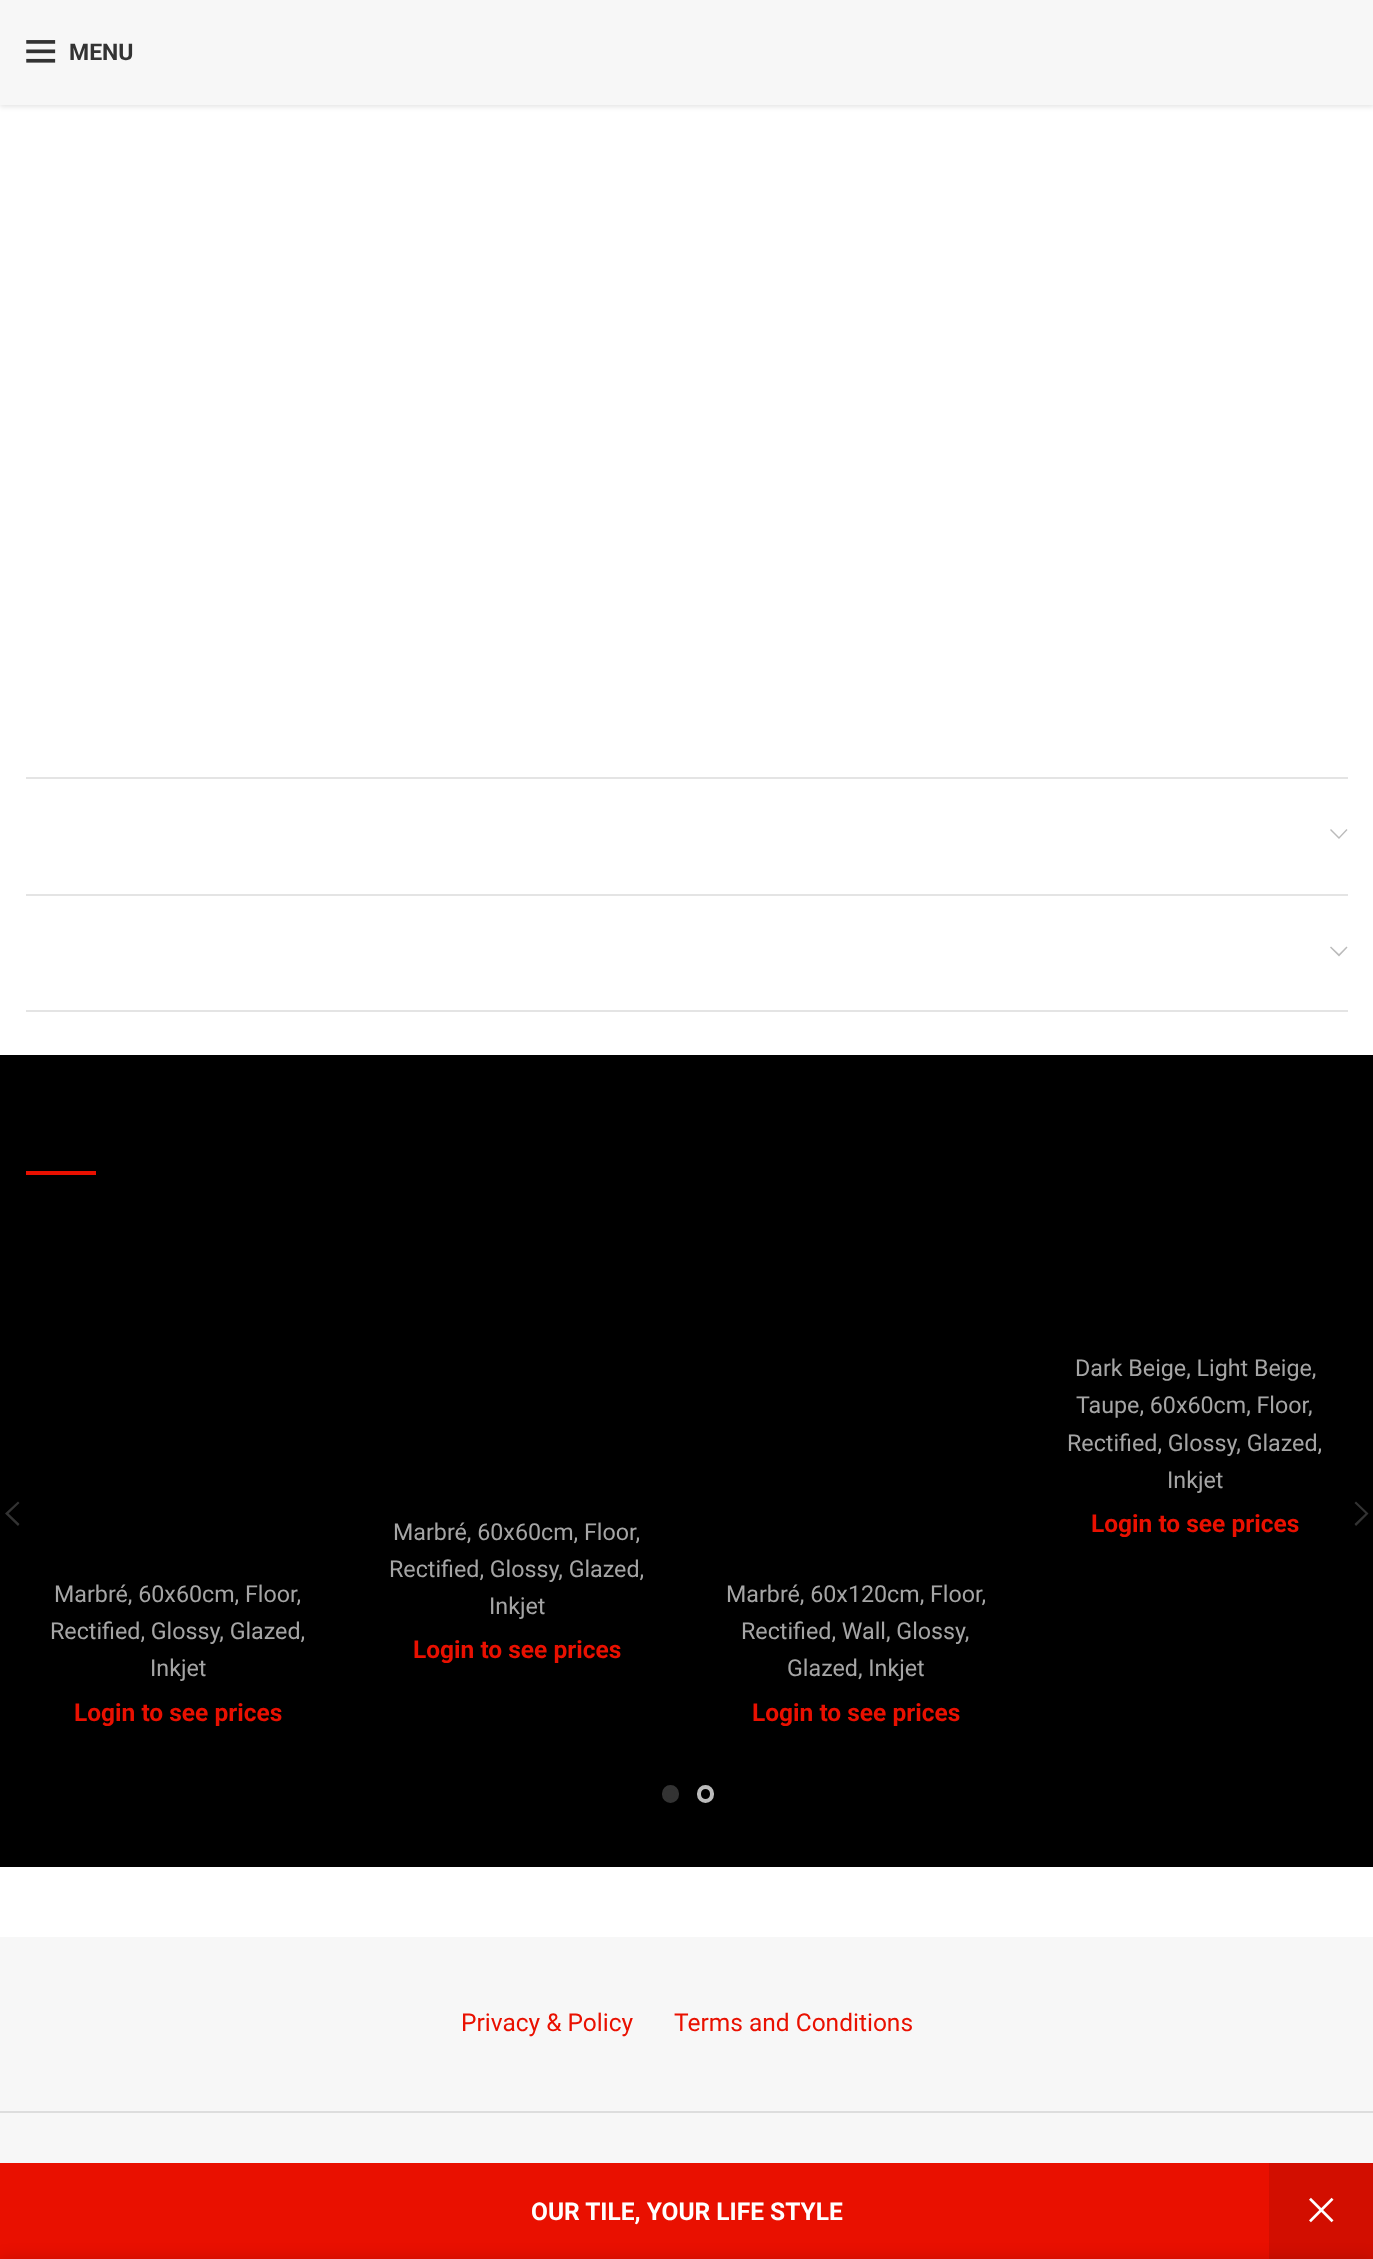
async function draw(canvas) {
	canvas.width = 1373;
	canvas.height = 2259;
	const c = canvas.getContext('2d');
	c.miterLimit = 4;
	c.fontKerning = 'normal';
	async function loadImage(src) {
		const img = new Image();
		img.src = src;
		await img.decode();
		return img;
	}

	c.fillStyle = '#fff';
	c.fillRect(0, 0, 1373, 2259);
	c.fillStyle = '#0000001a';
	c.filter = 'blur(2.5px)';
	c.beginPath();
	c.rect(0, 2, 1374, 105);
	c.fill();
	c.filter = 'none';
	c.fillStyle = '#f7f7f7';
	c.fillRect(0, 0, 1373, 105);
	c.drawImage(await loadImage('img1.png'), 26, 40, 30, 23);
	c.font = 'bold 23px Roboto';
	c.fillStyle = '#333';
	c.fillText('MENU', 69, 60);
	for (const [x, y, w, h, color] of [
		[0, 1055, 1373, 812, '#000'],
		[26, 777, 1322, 2, '#e4e4e4'],
		[26, 894, 1322, 2, '#e4e4e4'],
	]) {
		c.fillStyle = color;
		c.fillRect(x, y, w, h);
	}
	c.fillStyle = '#bbb';
	c.beginPath();
	c.moveTo(1346.5, 829);
	c.lineTo(1347.5, 830);
	c.lineTo(1339, 839);
	c.lineTo(1330, 830);
	c.lineTo(1331, 829);
	c.lineTo(1339, 837);
	c.closePath();
	c.fill();
	c.fillStyle = '#e4e4e4';
	c.fillRect(26, 1010, 1322, 2);
	c.fillStyle = '#bbb';
	c.beginPath();
	c.moveTo(1346.5, 946.5);
	c.lineTo(1347.5, 947.5);
	c.lineTo(1339, 956.5);
	c.lineTo(1330, 947.5);
	c.lineTo(1331, 946.5);
	c.lineTo(1339, 954);
	c.closePath();
	c.fill();
	c.fillStyle = '#e91000';
	c.fillRect(26, 1171, 70, 4);
	c.font = '23.25px Roboto';
	c.fillStyle = '#a5a5a5';
	for (const [text, x, y] of [
		['Dark Beige, Light Beige,', 1075, 1376],
		['Taupe, 60x60cm, Floor,', 1076, 1413],
		['Rectified, Glossy, Glazed,', 1067, 1451],
		['Inkjet', 1167, 1488],
	]) {
		c.fillText(text, x, y);
	}
	c.font = 'bold 24.5px Roboto';
	c.fillStyle = '#e91000';
	c.fillText('Login to see prices', 1091, 1532);
	c.font = '23.25px Roboto';
	c.fillStyle = '#a5a5a5';
	for (const [text, x, y] of [
		['Marbré, 60x60cm, Floor,', 54, 1602],
		['Rectified, Glossy, Glazed,', 50, 1639],
		['Inkjet', 150, 1676],
	]) {
		c.fillText(text, x, y);
	}
	c.font = 'bold 24.5px Roboto';
	c.fillStyle = '#e91000';
	c.fillText('Login to see prices', 74, 1721);
	c.font = '23.25px Roboto';
	c.fillStyle = '#a5a5a5';
	for (const [text, x, y] of [
		['Marbré, 60x60cm, Floor,', 393, 1540],
		['Rectified, Glossy, Glazed,', 389, 1577],
		['Inkjet', 489, 1614],
	]) {
		c.fillText(text, x, y);
	}
	c.font = 'bold 24.5px Roboto';
	c.fillStyle = '#e91000';
	c.fillText('Login to see prices', 413, 1658);
	c.font = '23.25px Roboto';
	c.fillStyle = '#a5a5a5';
	for (const [text, x, y] of [
		['Marbré, 60x120cm, Floor,', 726, 1602],
		['Rectified, Wall, Glossy,', 741, 1639],
		['Glazed, Inkjet', 787, 1676],
	]) {
		c.fillText(text, x, y);
	}
	c.font = 'bold 24.5px Roboto';
	c.fillStyle = '#e91000';
	c.fillText('Login to see prices', 752, 1721);
	c.fillStyle = '#333';
	c.beginPath();
	c.moveTo(19.5, 1503);
	c.lineTo(8.5, 1513.5);
	c.lineTo(19.5, 1524);
	c.lineTo(18, 1526);
	c.lineTo(5, 1513.5);
	c.lineTo(18, 1501.5);
	c.closePath();
	c.fill();
	c.beginPath();
	c.moveTo(1356, 1501.5);
	c.lineTo(1368.5, 1513.5);
	c.lineTo(1356, 1526);
	c.lineTo(1354.5, 1524);
	c.lineTo(1365.5, 1513.5);
	c.lineTo(1354.5, 1503);
	c.closePath();
	c.fill();
	c.beginPath();
	c.roundRect(664, 1787, 13, 14, 6.5);
	c.fill();
	c.strokeStyle = '#333';
	c.lineWidth = 4;
	c.stroke();
	c.beginPath();
	c.roundRect(699, 1787, 13, 14, 6.5);
	c.strokeStyle = '#bbb';
	c.stroke();
	c.fillStyle = '#f7f7f7';
	c.fillRect(0, 1937, 1373, 226);
	c.font = '24.5px Roboto';
	c.fillStyle = '#e91000';
	c.fillText('Privacy & Policy', 461, 2031);
	c.fillText('Terms and Conditions', 674, 2031);
	c.fillStyle = '#ddd';
	c.fillRect(0, 2111, 1373, 2);
	c.fillStyle = '#e91000';
	c.fillRect(0, 2163, 1269, 96);
	c.font = 'bold 24.5px Roboto';
	c.fillStyle = '#fff';
	c.fillText('OUR TILE, YOUR LIFE STYLE', 531, 2220);
	c.fillStyle = '#d20e00';
	c.fillRect(1269, 2163, 104, 96);
	c.drawImage(await loadImage('img2.png'), 1309, 2197, 25, 26);
	c.fillStyle = '#00000024';
	c.filter = 'blur(8px)';
	c.beginPath();
	c.rect(0, 2259, 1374, 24);
	c.fill();
	c.filter = 'none';
}

draw(document.querySelector('canvas'));
